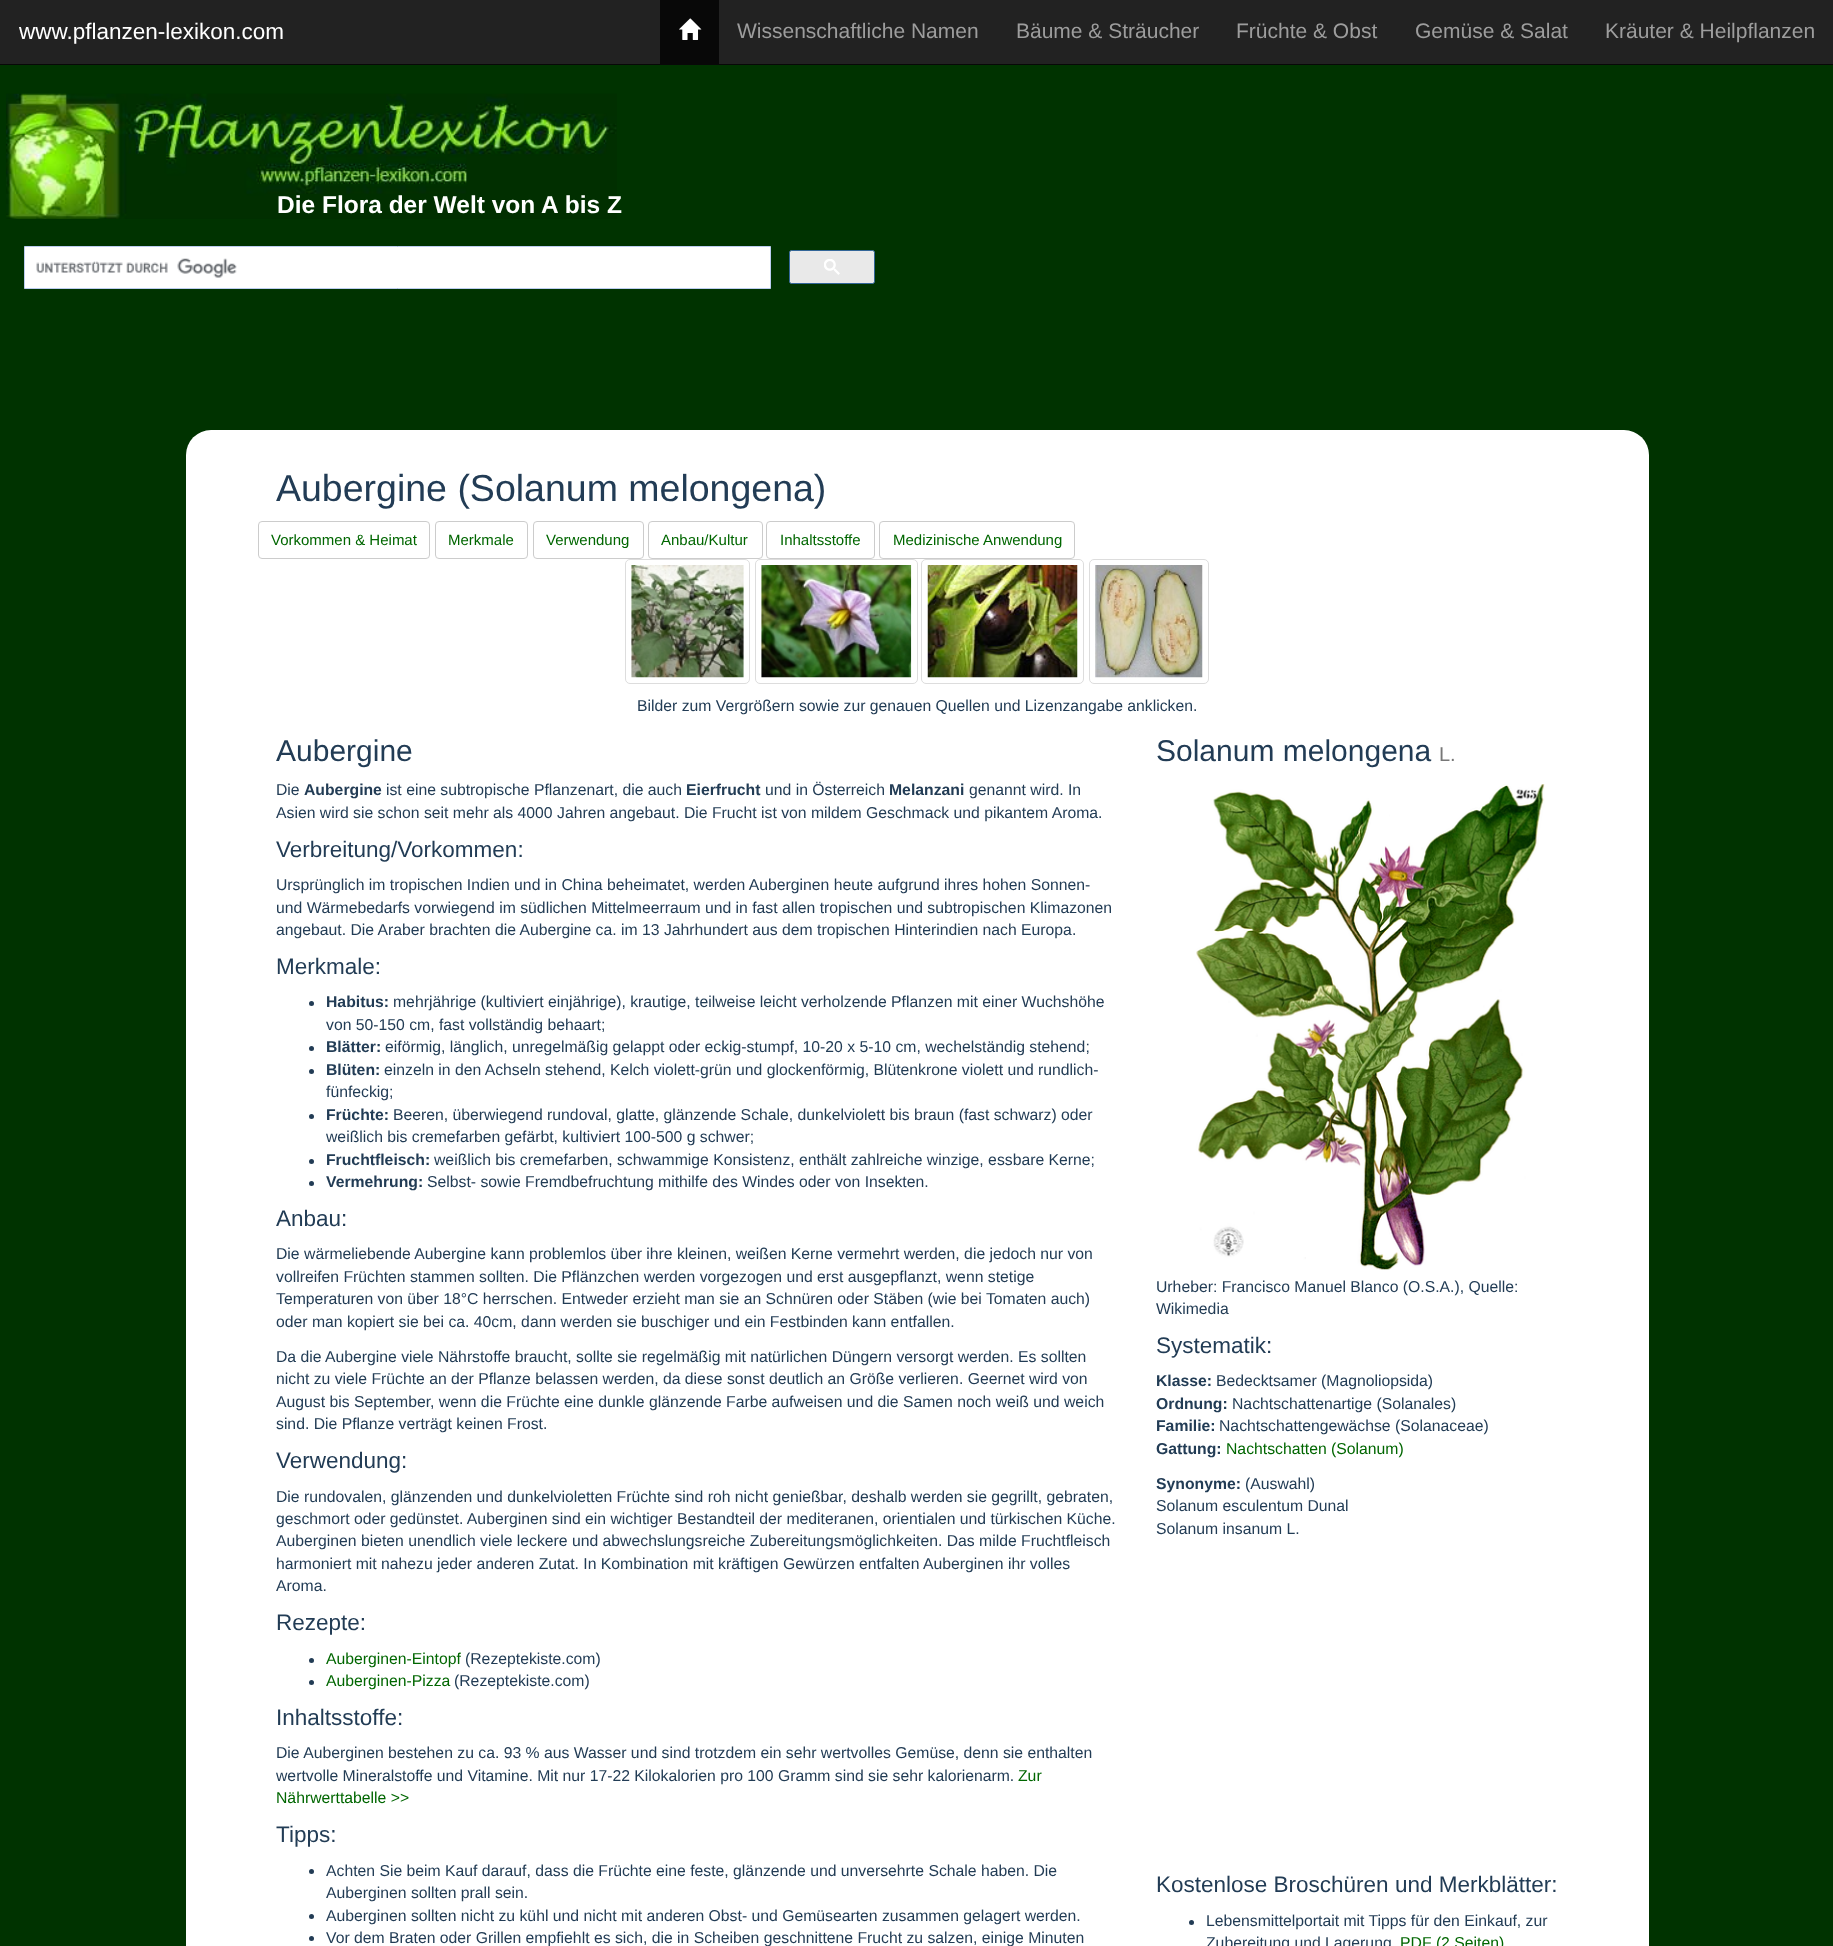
async function draw(canvas) {
	canvas.width = 1833;
	canvas.height = 1946;
	const c = canvas.getContext('2d');
	c.miterLimit = 4;
	c.fontKerning = 'normal';
	async function loadImage(src) {
		const img = new Image();
		img.src = src;
		await img.decode();
		return img;
	}

	c.fillStyle = '#030';
	c.fillRect(0, 0, 1833, 1946);
	c.fillStyle = '#222';
	c.fillRect(0, 0, 1833, 64);
	c.fillStyle = '#080808';
	c.fillRect(0, 64, 1833, 1);
	c.font = '22.5px Liberation Sans';
	c.fillStyle = '#fff';
	c.fillText('www.pflanzen-lexikon.com', 19, 39);
	c.fillStyle = '#080808';
	c.fillRect(660, 0, 59, 64);
	c.drawImage(await loadImage('img1.png'), 679, 18, 23, 22);
	c.font = '21px Liberation Sans';
	c.fillStyle = '#9d9d9d';
	for (const [text, x, y] of [
		['Wissenschaftliche Namen', 737, 38],
		['Bäume & Sträucher', 1016, 38],
		['Früchte & Obst', 1236, 38],
		['Gemüse & Salat', 1415, 38],
		['Kräuter & Heilpflanzen', 1605, 38],
	]) {
		c.fillText(text, x, y);
	}
	c.drawImage(await loadImage('img2.png'), 6, 93, 611, 126);
	c.font = 'bold 24.5px Liberation Sans';
	c.fillStyle = '#fff';
	c.fillText('Die Flora der Welt von A bis Z', 277, 213);
	c.beginPath();
	c.rect(24.5, 246.5, 746, 42);
	c.fill();
	c.strokeStyle = '#bccdf0';
	c.stroke();
	c.drawImage(await loadImage('img3.png'), 36, 258, 201, 20);
	c.fillStyle = '#e9e9e9';
	c.beginPath();
	c.roundRect(789.5, 250.5, 85, 33, 2);
	c.fill();
	c.strokeStyle = '#369';
	c.stroke();
	c.drawImage(await loadImage('img4.png'), 824, 259, 16, 16);
	c.fillStyle = '#fff';
	c.beginPath();
	c.roundRect(186, 430, 1463, 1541, 25);
	c.fill();
	c.font = '37.5px Liberation Sans';
	c.fillStyle = '#223c55';
	c.fillText('Aubergine (Solanum melongena)', 276, 501);
	c.beginPath();
	c.roundRect(258.5, 521.5, 171, 37, 3.5);
	c.strokeStyle = '#ccc';
	c.stroke();
	c.font = '15px Liberation Sans';
	c.fillStyle = '#060';
	c.fillText('Vorkommen & Heimat', 271, 545);
	c.beginPath();
	c.roundRect(435.5, 521.5, 92, 37, 3.5);
	c.stroke();
	c.fillText('Merkmale', 448, 545);
	c.beginPath();
	c.roundRect(533.5, 521.5, 110, 37, 3.5);
	c.stroke();
	c.fillText('Verwendung', 546, 545);
	c.beginPath();
	c.roundRect(648.5, 521.5, 114, 37, 3.5);
	c.stroke();
	c.fillText('Anbau/Kultur', 661, 545);
	c.beginPath();
	c.roundRect(766.5, 521.5, 108, 37, 3.5);
	c.stroke();
	c.fillText('Inhaltsstoffe', 780, 545);
	c.beginPath();
	c.roundRect(879.5, 521.5, 195, 37, 3.5);
	c.stroke();
	c.fillText('Medizinische Anwendung', 893, 545);
	c.beginPath();
	c.roundRect(625.5, 559.5, 124, 124, 4.5);
	c.strokeStyle = '#ddd';
	c.stroke();
	c.drawImage(await loadImage('img5.png'), 631, 565, 113, 113);
	c.beginPath();
	c.roundRect(755.5, 559.5, 162, 124, 4.5);
	c.stroke();
	c.drawImage(await loadImage('img6.png'), 761, 565, 151, 113);
	c.beginPath();
	c.roundRect(921.5, 559.5, 162, 124, 4.5);
	c.stroke();
	c.drawImage(await loadImage('img7.png'), 927, 565, 151, 113);
	c.beginPath();
	c.roundRect(1089.5, 559.5, 119, 124, 4.5);
	c.stroke();
	c.drawImage(await loadImage('img8.png'), 1095, 565, 108, 113);
	c.font = '15.75px Liberation Sans';
	c.fillStyle = '#223c55';
	c.fillText('Bilder zum Vergrößern sowie zur genauen Quellen und Lizenzangabe anklicken.', 637, 711);
	c.font = '30px Liberation Sans';
	c.fillText('Aubergine', 276, 761);
	c.font = '15.75px Liberation Sans';
	c.fillText('Die', 276, 795);
	c.font = 'bold 15.75px Liberation Sans';
	c.fillText('Aubergine', 304, 795);
	c.font = '15.75px Liberation Sans';
	c.fillText('ist eine subtropische Pflanzenart, die auch', 386, 795);
	c.font = 'bold 15.75px Liberation Sans';
	c.fillText('Eierfrucht', 686, 795);
	c.font = '15.75px Liberation Sans';
	c.fillText('und in Österreich', 765, 795);
	c.font = 'bold 15.75px Liberation Sans';
	c.fillText('Melanzani', 889, 795);
	c.font = '15.75px Liberation Sans';
	c.fillText('genannt wird. In', 969, 795);
	c.fillText('Asien wird sie schon seit mehr als 4000 Jahren angebaut. Die Frucht ist von mildem Geschmack und pikantem Aroma.', 276, 818);
	c.font = '22.5px Liberation Sans';
	c.fillText('Verbreitung/Vorkommen:', 276, 857);
	c.font = '15.75px Liberation Sans';
	for (const [text, x, y] of [
		['Ursprünglich im tropischen Indien und in China beheimatet, werden Auberginen heute aufgrund ihres hohen Sonnen-', 276, 890],
		['und Wärmebedarfs vorwiegend im südlichen Mittelmeerraum und in fast allen tropischen und subtropischen Klimazonen', 276, 913],
		['angebaut. Die Araber brachten die Aubergine ca. im 13 Jahrhundert aus dem tropischen Hinterindien nach Europa.', 276, 935],
	]) {
		c.fillText(text, x, y);
	}
	c.font = '22.5px Liberation Sans';
	c.fillText('Merkmale:', 276, 974);
	c.beginPath();
	c.arc(311.5, 1003.5, 2.5, 0, 2 * Math.PI);
	c.fill();
	c.font = 'bold 15.75px Liberation Sans';
	c.fillText('Habitus:', 326, 1007);
	c.font = '15.75px Liberation Sans';
	c.fillText('mehrjährige (kultiviert einjährige), krautige, teilweise leicht verholzende Pflanzen mit einer Wuchshöhe', 393, 1007);
	c.fillText('von 50-150 cm, fast vollständig behaart;', 326, 1030);
	c.beginPath();
	c.arc(311.5, 1048.5, 2.5, 0, 2 * Math.PI);
	c.fill();
	c.font = 'bold 15.75px Liberation Sans';
	c.fillText('Blätter:', 326, 1052);
	c.font = '15.75px Liberation Sans';
	c.fillText('eiförmig, länglich, unregelmäßig gelappt oder eckig-stumpf, 10-20 x 5-10 cm, wechelständig stehend;', 385, 1052);
	c.beginPath();
	c.arc(311.5, 1071.5, 2.5, 0, 2 * Math.PI);
	c.fill();
	c.font = 'bold 15.75px Liberation Sans';
	c.fillText('Blüten:', 326, 1075);
	c.font = '15.75px Liberation Sans';
	c.fillText('einzeln in den Achseln stehend, Kelch violett-grün und glockenförmig, Blütenkrone violett und rundlich-', 384, 1075);
	c.fillText('fünfeckig;', 326, 1097);
	c.beginPath();
	c.arc(311.5, 1116.5, 2.5, 0, 2 * Math.PI);
	c.fill();
	c.font = 'bold 15.75px Liberation Sans';
	c.fillText('Früchte:', 326, 1120);
	c.font = '15.75px Liberation Sans';
	c.fillText('Beeren, überwiegend rundoval, glatte, glänzende Schale, dunkelviolett bis braun (fast schwarz) oder', 393, 1120);
	c.fillText('weißlich bis cremefarben gefärbt, kultiviert 100-500 g schwer;', 326, 1142);
	c.beginPath();
	c.arc(311.5, 1161.5, 2.5, 0, 2 * Math.PI);
	c.fill();
	c.font = 'bold 15.75px Liberation Sans';
	c.fillText('Fruchtfleisch:', 326, 1165);
	c.font = '15.75px Liberation Sans';
	c.fillText('weißlich bis cremefarben, schwammige Konsistenz, enthält zahlreiche winzige, essbare Kerne;', 434, 1165);
	c.beginPath();
	c.arc(311.5, 1183.5, 2.5, 0, 2 * Math.PI);
	c.fill();
	c.font = 'bold 15.75px Liberation Sans';
	c.fillText('Vermehrung:', 326, 1187);
	c.font = '15.75px Liberation Sans';
	c.fillText('Selbst- sowie Fremdbefruchtung mithilfe des Windes oder von Insekten.', 427, 1187);
	c.font = '22.5px Liberation Sans';
	c.fillText('Anbau:', 276, 1226);
	c.font = '15.75px Liberation Sans';
	for (const [text, x, y] of [
		['Die wärmeliebende Aubergine kann problemlos über ihre kleinen, weißen Kerne vermehrt werden, die jedoch nur von', 276, 1259],
		['vollreifen Früchten stammen sollten. Die Pflänzchen werden vorgezogen und erst ausgepflanzt, wenn stetige', 276, 1282],
		['Temperaturen von über 18°C herrschen. Entweder erzieht man sie an Schnüren oder Stäben (wie bei Tomaten auch)', 276, 1304],
		['oder man kopiert sie bei ca. 40cm, dann werden sie buschiger und ein Festbinden kann entfallen.', 276, 1327],
		['Da die Aubergine viele Nährstoffe braucht, sollte sie regelmäßig mit natürlichen Düngern versorgt werden. Es sollten', 276, 1362],
		['nicht zu viele Früchte an der Pflanze belassen werden, da diese sonst deutlich an Größe verlieren. Geernet wird von', 276, 1384],
		['August bis September, wenn die Früchte eine dunkle glänzende Farbe aufweisen und die Samen noch weiß und weich', 276, 1407],
		['sind. Die Pflanze verträgt keinen Frost.', 276, 1429],
	]) {
		c.fillText(text, x, y);
	}
	c.font = '22.5px Liberation Sans';
	c.fillText('Verwendung:', 276, 1468);
	c.font = '15.75px Liberation Sans';
	for (const [text, x, y] of [
		['Die rundovalen, glänzenden und dunkelvioletten Früchte sind roh nicht genießbar, deshalb werden sie gegrillt, gebraten,', 276, 1502],
		['geschmort oder gedünstet. Auberginen sind ein wichtiger Bestandteil der mediteranen, orientialen und türkischen Küche.', 276, 1524],
		['Auberginen bieten unendlich viele leckere und abwechslungsreiche Zubereitungsmöglichkeiten. Das milde Fruchtfleisch', 276, 1546],
		['harmoniert mit nahezu jeder anderen Zutat. In Kombination mit kräftigen Gewürzen entfalten Auberginen ihr volles', 276, 1569],
		['Aroma.', 276, 1591],
	]) {
		c.fillText(text, x, y);
	}
	c.font = '22.5px Liberation Sans';
	c.fillText('Rezepte:', 276, 1630);
	c.beginPath();
	c.arc(311.5, 1660.5, 2.5, 0, 2 * Math.PI);
	c.fill();
	c.font = '15.75px Liberation Sans';
	c.fillStyle = '#060';
	c.fillText('Auberginen-Eintopf', 326, 1664);
	c.fillStyle = '#223c55';
	c.fillText('(Rezeptekiste.com)', 465, 1664);
	c.beginPath();
	c.arc(311.5, 1682.5, 2.5, 0, 2 * Math.PI);
	c.fill();
	c.fillStyle = '#060';
	c.fillText('Auberginen-Pizza', 326, 1686);
	c.fillStyle = '#223c55';
	c.fillText('(Rezeptekiste.com)', 454, 1686);
	c.font = '22.5px Liberation Sans';
	c.fillText('Inhaltsstoffe:', 276, 1725);
	c.font = '15.75px Liberation Sans';
	c.fillText('Die Auberginen bestehen zu ca. 93 % aus Wasser und sind trotzdem ein sehr wertvolles Gemüse, denn sie enthalten', 276, 1758);
	c.fillText('wertvolle Mineralstoffe und Vitamine. Mit nur 17-22 Kilokalorien pro 100 Gramm sind sie sehr kalorienarm.', 276, 1781);
	c.fillStyle = '#060';
	c.fillText('Zur', 1018, 1781);
	c.fillText('Nährwerttabelle >>', 276, 1803);
	c.font = '22.5px Liberation Sans';
	c.fillStyle = '#223c55';
	c.fillText('Tipps:', 276, 1842);
	c.beginPath();
	c.arc(311.5, 1871.5, 2.5, 0, 2 * Math.PI);
	c.fill();
	c.font = '15.75px Liberation Sans';
	c.fillText('Achten Sie beim Kauf darauf, dass die Früchte eine feste, glänzende und unversehrte Schale haben. Die', 326, 1876);
	c.fillText('Auberginen sollten prall sein.', 326, 1898);
	c.beginPath();
	c.arc(311.5, 1916.5, 2.5, 0, 2 * Math.PI);
	c.fill();
	c.fillText('Auberginen sollten nicht zu kühl und nicht mit anderen Obst- und Gemüsearten zusammen gelagert werden.', 326, 1921);
	c.beginPath();
	c.arc(311.5, 1938.5, 2.5, 0, 2 * Math.PI);
	c.fill();
	c.fillText('Vor dem Braten oder Grillen empfiehlt es sich, die in Scheiben geschnittene Frucht zu salzen, einige Minuten', 326, 1943);
	c.font = '30px Liberation Sans';
	c.fillText('Solanum melongena', 1156, 761);
	c.font = '20px Liberation Sans';
	c.fillStyle = '#777';
	c.fillText('L.', 1439, 761);
	c.drawImage(await loadImage('img9.png'), 1196, 784, 349, 486);
	c.font = '15.75px Liberation Sans';
	c.fillStyle = '#223c55';
	c.fillText('Urheber: Francisco Manuel Blanco (O.S.A.), Quelle:', 1156, 1292);
	c.fillText('Wikimedia', 1156, 1314);
	c.font = '22.5px Liberation Sans';
	c.fillText('Systematik:', 1156, 1353);
	c.font = 'bold 15.75px Liberation Sans';
	c.fillText('Klasse:', 1156, 1386);
	c.font = '15.75px Liberation Sans';
	c.fillText('Bedecktsamer (Magnoliopsida)', 1216, 1386);
	c.font = 'bold 15.75px Liberation Sans';
	c.fillText('Ordnung:', 1156, 1409);
	c.font = '15.75px Liberation Sans';
	c.fillText('Nachtschattenartige (Solanales)', 1232, 1409);
	c.font = 'bold 15.75px Liberation Sans';
	c.fillText('Familie:', 1156, 1431);
	c.font = '15.75px Liberation Sans';
	c.fillText('Nachtschattengewächse (Solanaceae)', 1219, 1431);
	c.font = 'bold 15.75px Liberation Sans';
	c.fillText('Gattung:', 1156, 1454);
	c.font = '15.75px Liberation Sans';
	c.fillStyle = '#060';
	c.fillText('Nachtschatten (Solanum)', 1226, 1454);
	c.font = 'bold 15.75px Liberation Sans';
	c.fillStyle = '#223c55';
	c.fillText('Synonyme:', 1156, 1489);
	c.font = '15.75px Liberation Sans';
	for (const [text, x, y] of [
		['(Auswahl)', 1245, 1489],
		['Solanum esculentum Dunal', 1156, 1511],
		['Solanum insanum L.', 1156, 1534],
	]) {
		c.fillText(text, x, y);
	}
	c.font = '22.5px Liberation Sans';
	c.fillText('Kostenlose Broschüren und Merkblätter:', 1156, 1892);
	c.beginPath();
	c.arc(1191.5, 1922.5, 2.5, 0, 2 * Math.PI);
	c.fill();
	c.font = '15.75px Liberation Sans';
	c.fillText('Lebensmittelportait mit Tipps für den Einkauf, zur', 1206, 1926);
	c.fillText('Zubereitung und Lagerung', 1206, 1948);
	c.fillStyle = '#060';
	c.fillText('PDF (2 Seiten)', 1400, 1948);
}

draw(document.querySelector('canvas'));
